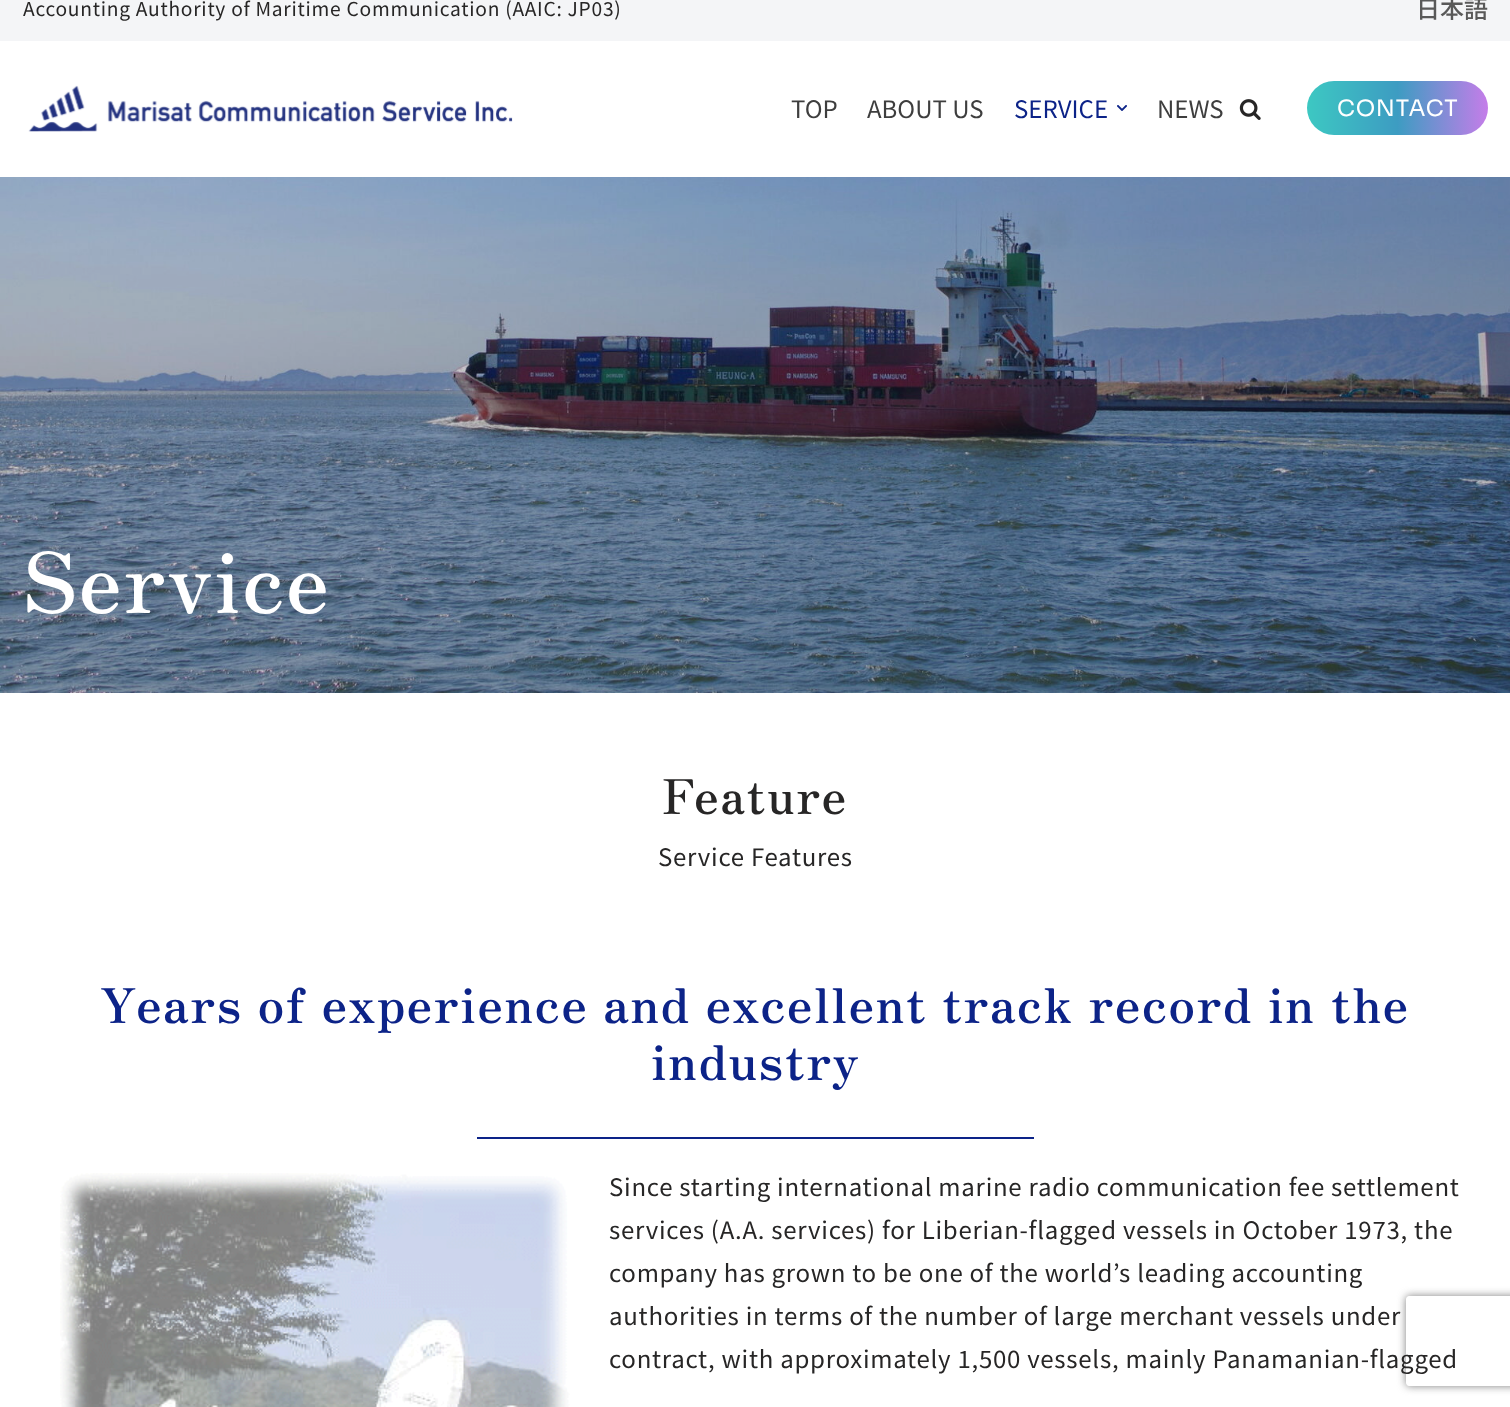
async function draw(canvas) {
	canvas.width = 1510;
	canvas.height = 1407;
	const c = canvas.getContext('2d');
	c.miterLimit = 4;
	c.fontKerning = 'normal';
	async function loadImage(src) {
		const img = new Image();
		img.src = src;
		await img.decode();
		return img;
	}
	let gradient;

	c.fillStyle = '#fff';
	c.fillRect(0, 0, 1510, 1407);
	c.fillStyle = '#f4f5f7';
	c.fillRect(0, 0, 1510, 41);
	c.letterSpacing = '0.75px';
	c.font = '19.2px Noto Sans JP';
	c.fillStyle = '#272626';
	c.fillText('Accounting Authority of Maritime Communication (AAIC: JP03)', 23, 16);
	c.letterSpacing = '0px';
	c.font = '500 24px Noto Sans JP';
	c.fillStyle = '#595959';
	c.fillText('日本語', 1416, 18);
	c.drawImage(await loadImage('img1.png'), 28, 85, 485, 47);
	c.font = '24px Noto Sans JP';
	c.fillStyle = '#3e3e3e';
	c.fillText('TOP', 791, 118);
	c.fillText('ABOUT US', 867, 118);
	c.fillStyle = '#0c2388';
	c.fillText('SERVICE', 1014, 118);
	c.drawImage(await loadImage('img2.png'), 1117, 105, 10, 6);
	c.fillStyle = '#3e3e3e';
	c.fillText('NEWS', 1157, 118);
	c.drawImage(await loadImage('img3.png'), 1239, 99, 22, 21);
	gradient = c.createLinearGradient(1307, 108, 1488, 108);
	gradient.addColorStop(0, '#3dc8c2');
	gradient.addColorStop(0.5, '#3d9cc2');
	gradient.addColorStop(1, '#c57de9');
	c.fillStyle = gradient;
	c.beginPath();
	c.roundRect(1307, 81, 181, 54, 27);
	c.fill();
	c.letterSpacing = '0.75px';
	c.font = '22.5px Sora';
	c.fillStyle = '#fff';
	c.fillText('CONTACT', 1337, 116);
	c.drawImage(await loadImage('img4.png'), 0, 177, 1510, 516);
	c.letterSpacing = '1.5px';
	c.font = 'bold 84px Zen Old Mincho';
	c.fillText('Service', 23, 613);
	c.font = 'bold 48px Zen Old Mincho';
	c.fillStyle = '#272626';
	c.fillText('Feature', 662, 814);
	c.letterSpacing = '0.75px';
	c.font = '24px Noto Sans JP';
	c.fillText('Service Features', 658, 866);
	c.letterSpacing = '1.5px';
	c.font = '900 48px Zen Old Mincho';
	c.fillStyle = '#0c2388';
	c.fillText('Years of experience and excellent track record in the', 100, 1023);
	c.fillText('industry', 651, 1080);
	c.fillRect(477, 1137, 557, 2);
	c.drawImage(await loadImage('img5.png'), 60, 1173, 510, 234);
	c.letterSpacing = '0.75px';
	c.font = '24px Noto Sans JP';
	c.fillStyle = '#272626';
	for (const [text, x, y] of [
		['Since starting international marine radio communication fee settlement', 609, 1196],
		['services (A.A. services) for Liberian-flagged vessels in October 1973, the', 609, 1239],
		['company has grown to be one of the world’s leading accounting', 609, 1282],
	]) {
		c.fillText(text, x, y);
	}
	c.save();
	c.beginPath();
	c.moveTo(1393, 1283);
	c.lineTo(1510, 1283);
	c.lineTo(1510, 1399);
	c.lineTo(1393, 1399);
	c.closePath();
	c.moveTo(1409, 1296);
	c.lineTo(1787, 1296);
	c.bezierCurveTo(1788.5, 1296, 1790, 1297.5, 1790, 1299);
	c.lineTo(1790, 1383);
	c.bezierCurveTo(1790, 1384.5, 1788.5, 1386, 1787, 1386);
	c.lineTo(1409, 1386);
	c.bezierCurveTo(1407.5, 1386, 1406, 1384.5, 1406, 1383);
	c.lineTo(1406, 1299);
	c.bezierCurveTo(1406, 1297.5, 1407.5, 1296, 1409, 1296);
	c.closePath();
	c.clip('evenodd');
	c.fillStyle = '#808080';
	c.filter = 'blur(4px)';
	c.beginPath();
	c.roundRect(1406, 1296, 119, 90, 3);
	c.fill();
	c.filter = 'none';
	c.restore();
	c.fillText('authorities in terms of the number of large merchant vessels under', 609, 1325);
	c.fillText('contract, with approximately 1,500 vessels, mainly Panamanian-flagged', 609, 1368);
}

draw(document.querySelector('canvas'));
